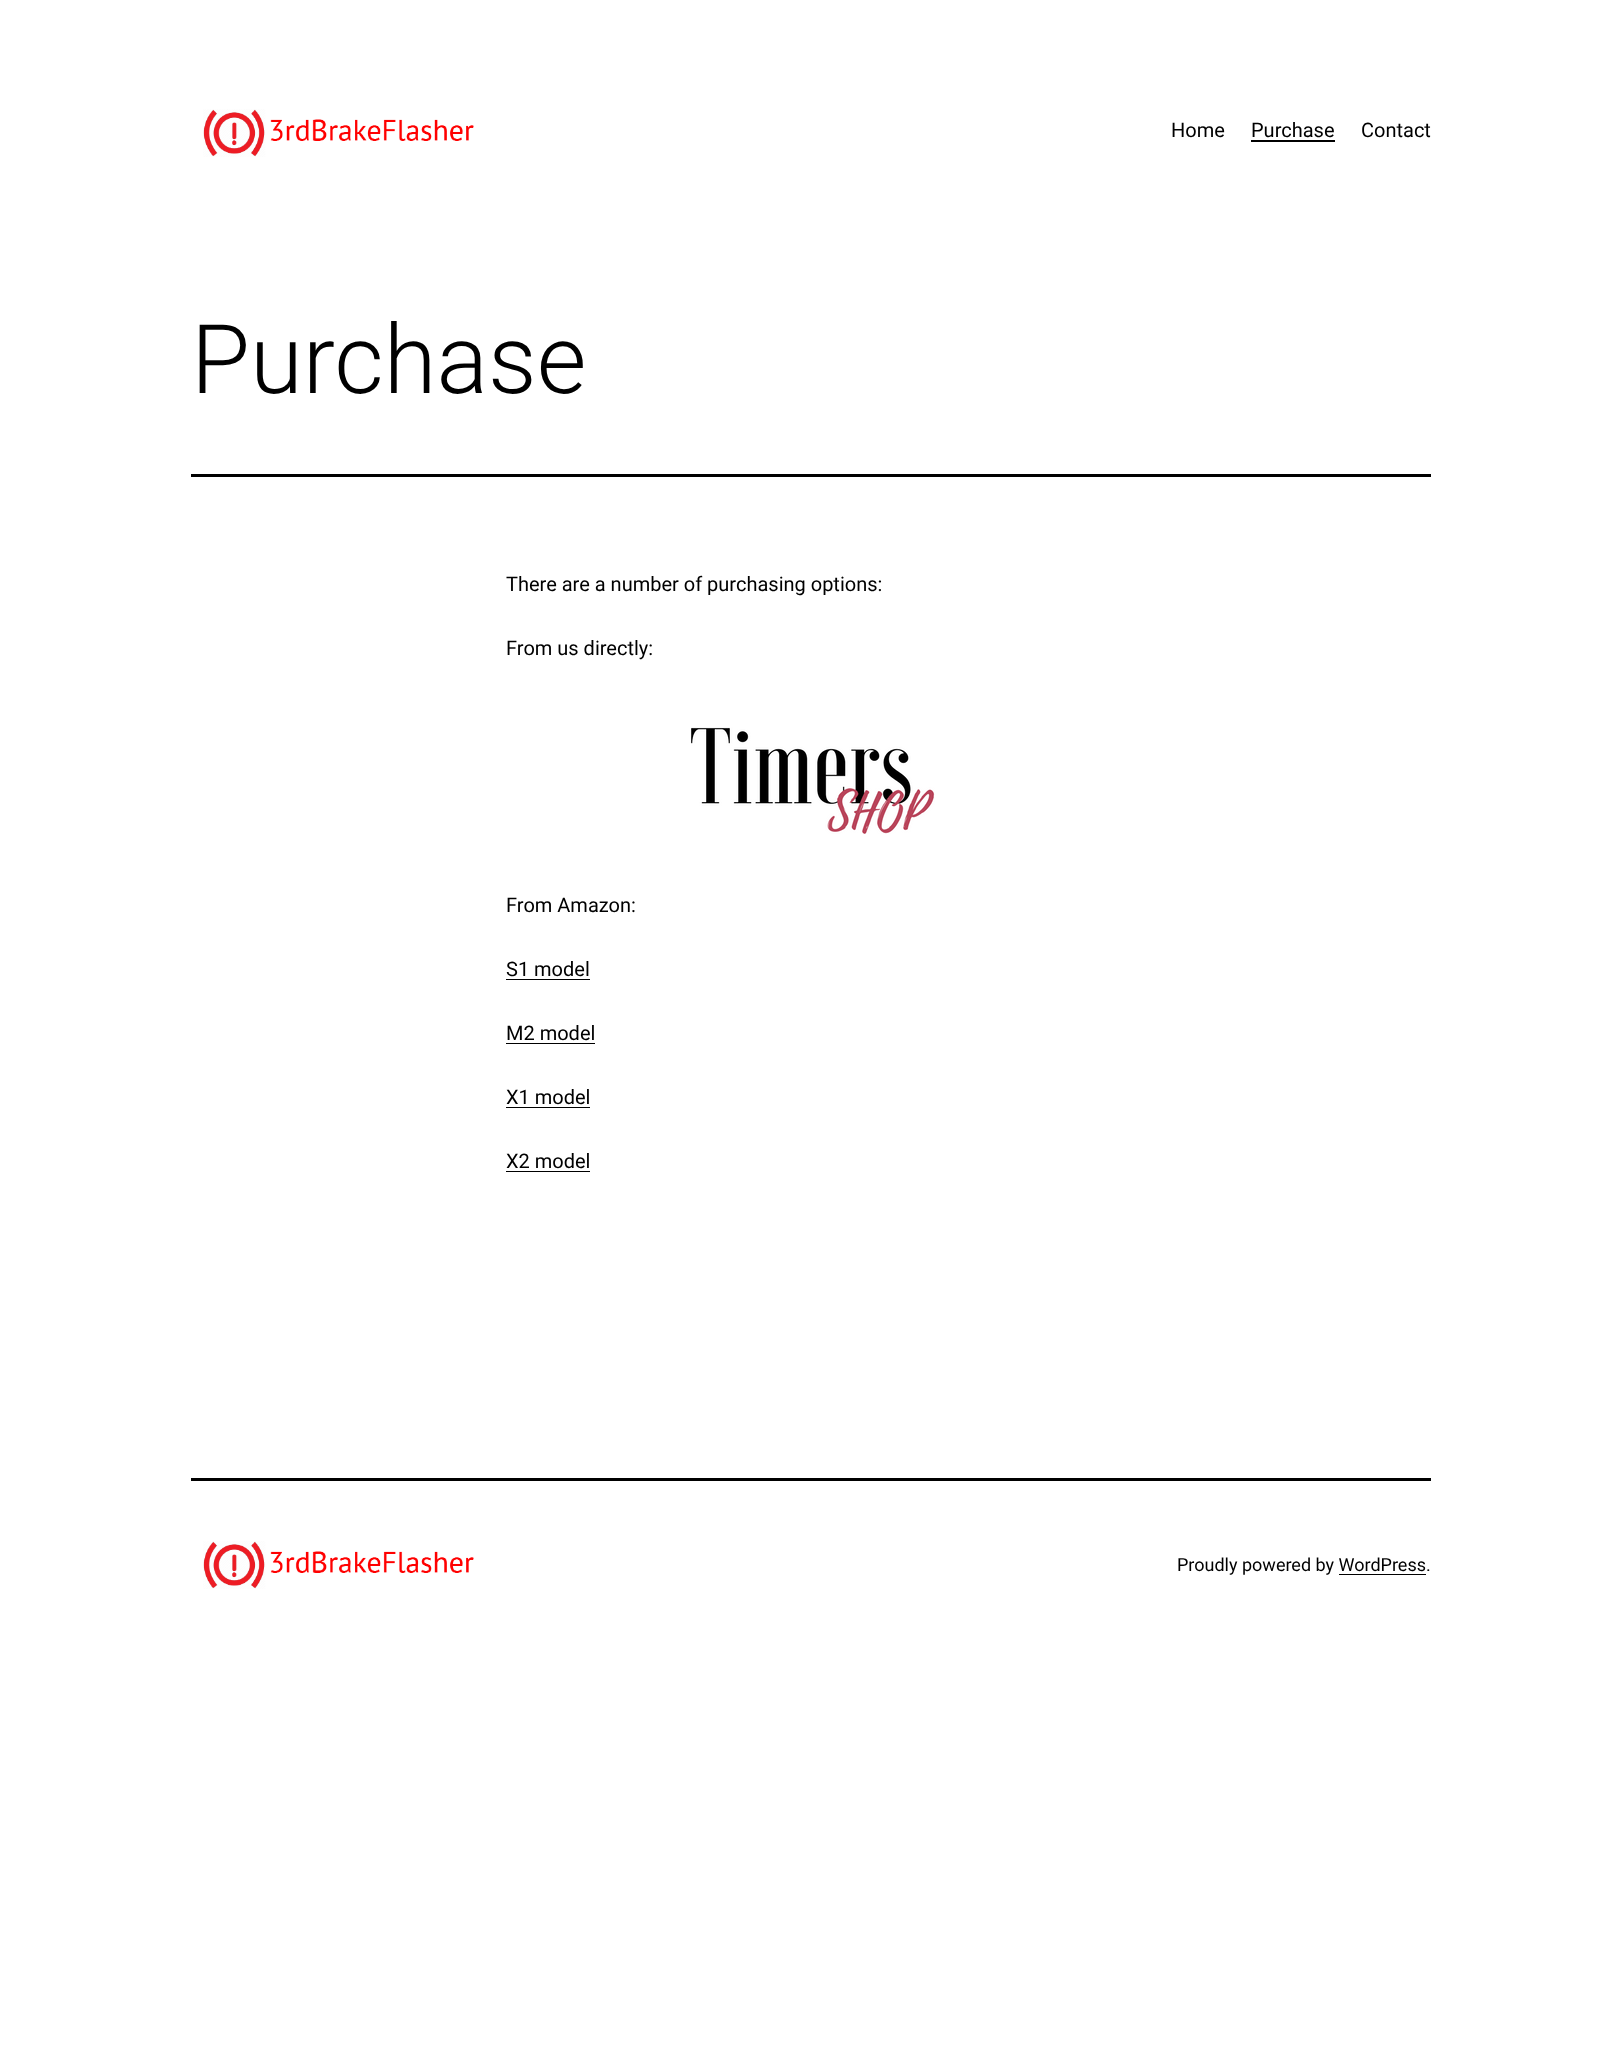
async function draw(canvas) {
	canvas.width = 1622;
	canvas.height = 2059;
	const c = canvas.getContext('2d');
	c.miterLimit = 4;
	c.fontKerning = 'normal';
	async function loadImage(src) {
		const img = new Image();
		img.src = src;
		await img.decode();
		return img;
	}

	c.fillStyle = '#fff';
	c.fillRect(0, 0, 1622, 2059);
	c.drawImage(await loadImage('img1.png'), 203, 109, 271, 48);
	c.font = '20px Roboto';
	c.fillStyle = '#000';
	c.fillText('Home', 1171, 137);
	c.fillText('Purchase', 1251, 137);
	c.fillRect(1251, 140, 84, 2);
	c.fillText('Contact', 1361, 137);
	c.fillRect(191, 474, 1240, 3);
	c.font = '300 96px Roboto';
	c.fillText('Purchase', 191, 393);
	c.font = '20px Roboto';
	c.fillText('There are a number of purchasing options:', 506, 591);
	c.fillText('From us directly:', 506, 655);
	c.drawImage(await loadImage('img2.png'), 691, 727, 244, 107);
	c.fillText('From Amazon:', 506, 912);
	c.fillText('S1 model', 506, 976);
	c.fillRect(506, 979, 84, 1);
	c.fillText('M2 model', 506, 1040);
	c.fillRect(506, 1043, 89, 1);
	c.fillText('X1 model', 506, 1104);
	c.fillRect(506, 1107, 84, 1);
	c.fillText('X2 model', 506, 1168);
	c.fillRect(506, 1171, 84, 1);
	c.fillRect(191, 1478, 1240, 3);
	c.drawImage(await loadImage('img1.png'), 203, 1541, 271, 48);
	c.font = '18px Roboto';
	c.fillText('Proudly powered by WordPress.', 1177, 1571);
	c.fillRect(1339, 1574, 87, 1);
}

draw(document.querySelector('canvas'));
